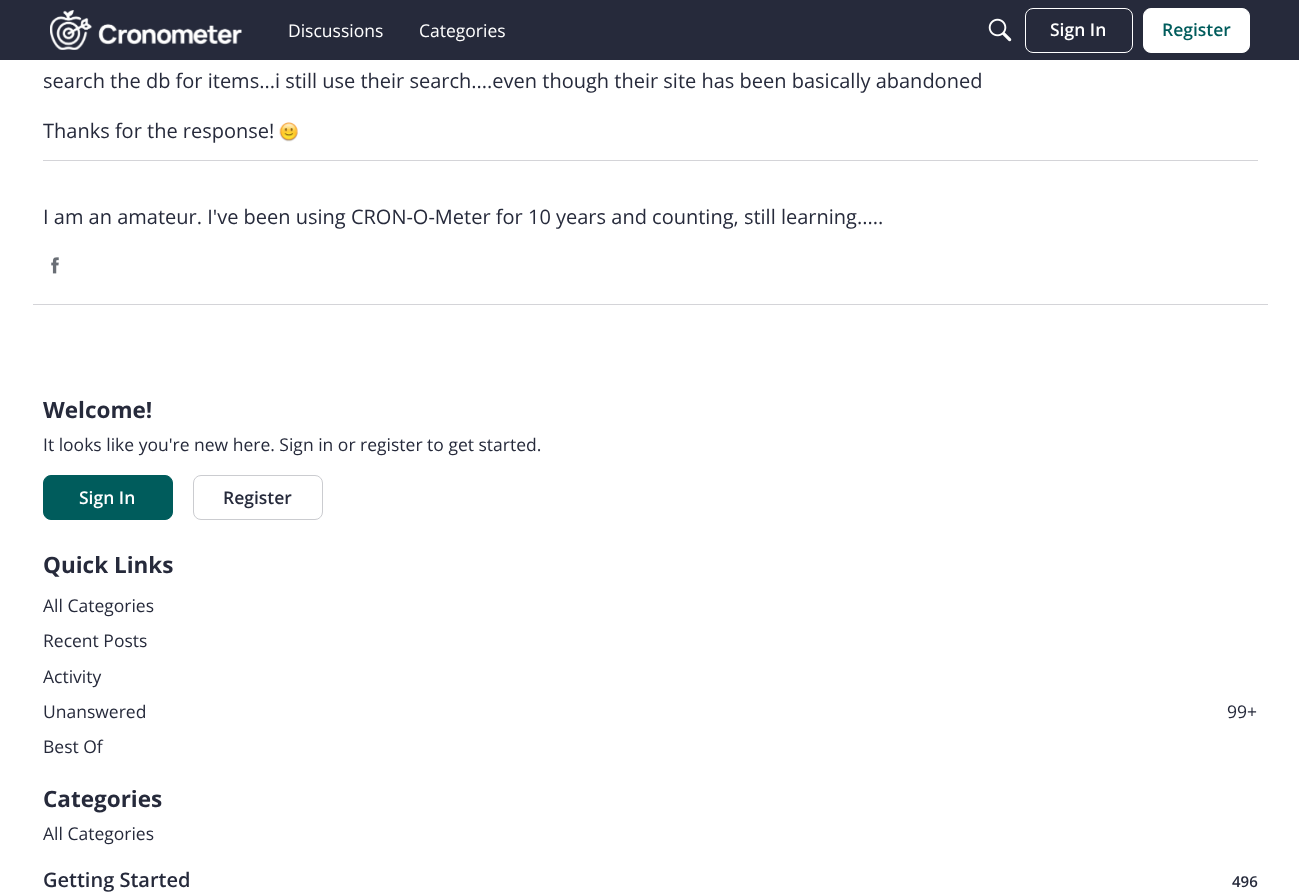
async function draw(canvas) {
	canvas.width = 1299;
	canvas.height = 892;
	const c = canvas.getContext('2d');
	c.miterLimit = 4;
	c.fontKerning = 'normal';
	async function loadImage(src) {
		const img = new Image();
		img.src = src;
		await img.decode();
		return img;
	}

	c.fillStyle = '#fff';
	c.fillRect(0, 0, 1299, 892);
	c.fillStyle = '#262a3b';
	c.fillRect(0, 0, 1299, 60);
	c.drawImage(await loadImage('img1.png'), 50, 10, 192, 40);
	c.font = '17.5px Open Sans';
	c.fillStyle = '#fff';
	c.fillText('Discussions', 288, 37);
	c.fillText('Categories', 419, 37);
	c.drawImage(await loadImage('img2.png'), 988, 18, 24, 24);
	c.beginPath();
	c.roundRect(1025.5, 8.5, 107, 44, 7.5);
	c.strokeStyle = '#fff';
	c.stroke();
	c.font = '600 17.5px Open Sans';
	c.fillText('Sign In', 1050, 36);
	c.beginPath();
	c.roundRect(1143.5, 8.5, 106, 44, 7.5);
	c.fill();
	c.stroke();
	c.fillStyle = '#005c5c';
	c.fillText('Register', 1162, 36);
	c.font = '20px Open Sans';
	c.fillStyle = '#262a3b';
	c.fillText('search the db for items...i still use their search....even though their site has been basically abandoned', 43, 88);
	c.fillText('Thanks for the response!', 43, 138);
	c.drawImage(await loadImage('img3.png'), 279, 122, 19, 20);
	c.fillStyle = '#d4d4d8';
	c.fillRect(43, 160, 1215, 1);
	c.fillStyle = '#262a3b';
	c.fillText('I am an amateur. I\'ve been using CRON-O-Meter for 10 years and counting, still learning.....', 43, 224);
	c.drawImage(await loadImage('img4.png'), 51, 257, 8, 17);
	c.fillStyle = '#d4d4d8';
	c.fillRect(33, 304, 1235, 1);
	c.font = 'bold 22.5px Open Sans';
	c.fillStyle = '#262a3b';
	c.fillText('Welcome!', 43, 418);
	c.font = '17.5px Open Sans';
	c.fillText('It looks like you\'re new here. Sign in or register to get started.', 43, 451);
	c.fillStyle = '#005c5c';
	c.beginPath();
	c.roundRect(43.5, 475.5, 129, 44, 7.5);
	c.fill();
	c.strokeStyle = '#005c5c';
	c.stroke();
	c.font = '600 17.5px Open Sans';
	c.fillStyle = '#fff';
	c.fillText('Sign In', 79, 504);
	c.beginPath();
	c.roundRect(193.5, 475.5, 129, 44, 7.5);
	c.strokeStyle = '#cbccd0';
	c.stroke();
	c.fillStyle = '#262a3b';
	c.fillText('Register', 223, 504);
	c.font = 'bold 22.5px Open Sans';
	c.fillText('Quick Links', 43, 573);
	c.font = '17.5px Open Sans';
	for (const [text, x, y] of [
		['All Categories', 43, 612],
		['Recent Posts', 43, 647],
		['Activity', 43, 683],
		['Unanswered', 43, 718],
		['99+', 1227, 718],
		['Best Of', 43, 753],
	]) {
		c.fillText(text, x, y);
	}
	c.font = 'bold 22.5px Open Sans';
	c.fillText('Categories', 43, 807);
	c.font = '17.5px Open Sans';
	c.fillText('All Categories', 43, 840);
	c.font = '600 20px Open Sans';
	c.fillText('Getting Started', 43, 887);
	c.font = '600 15px Open Sans';
	c.fillText('496', 1232, 887);
}

draw(document.querySelector('canvas'));
